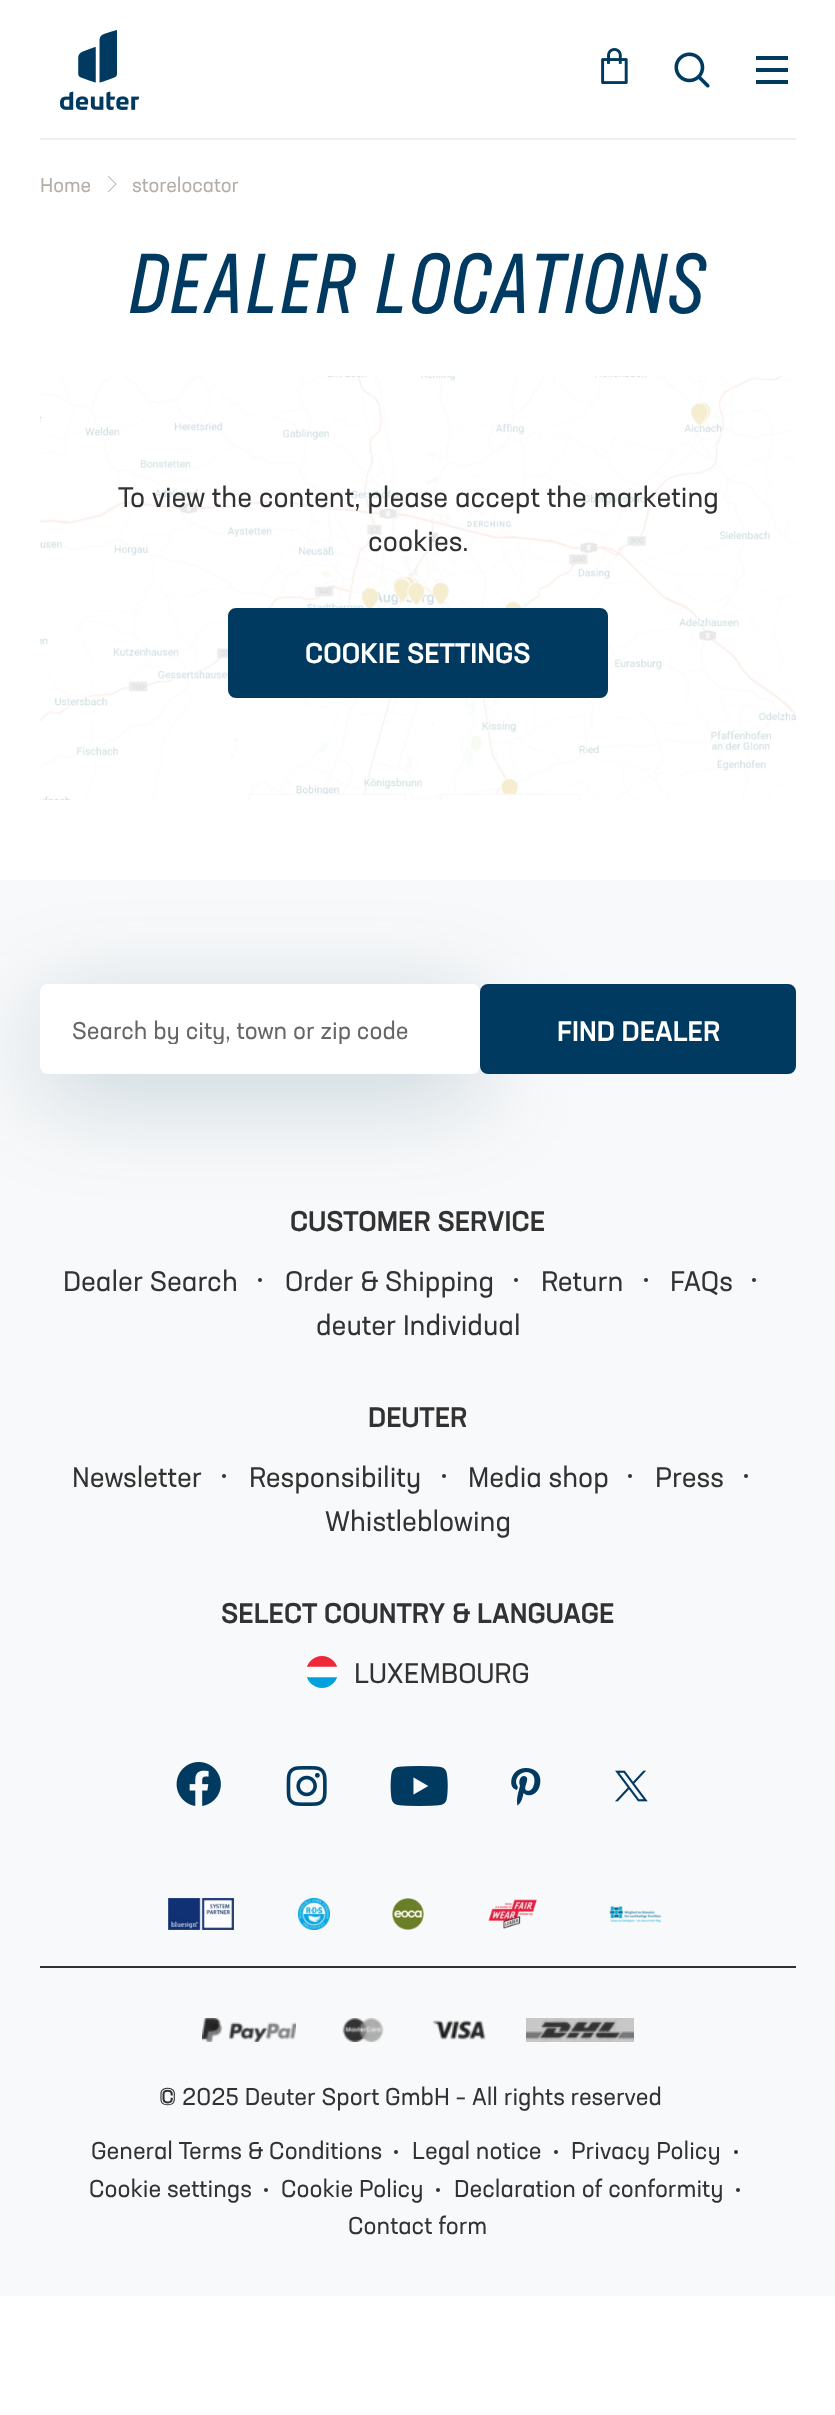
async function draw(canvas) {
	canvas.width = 835;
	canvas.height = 2415;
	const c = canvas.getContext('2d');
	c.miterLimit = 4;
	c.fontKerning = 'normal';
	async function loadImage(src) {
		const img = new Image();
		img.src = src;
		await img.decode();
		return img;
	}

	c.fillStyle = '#fff';
	c.fillRect(0, 0, 835, 2415);
	c.drawImage(await loadImage('img1.png'), 60, 30, 80, 80);
	c.drawImage(await loadImage('img2.png'), 601, 48, 27, 36);
	c.drawImage(await loadImage('img3.png'), 674, 52, 36, 36);
	for (const [x, y, w, h, color] of [
		[756, 56, 32, 4, '#003a60'],
		[756, 68, 32, 4, '#003a60'],
		[756, 80, 32, 4, '#003a60'],
		[40, 138, 756, 2, '#f0eeec'],
	]) {
		c.fillStyle = color;
		c.fillRect(x, y, w, h);
	}
	c.font = '20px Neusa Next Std';
	c.fillStyle = '#b5ada6';
	c.fillText('Home', 40, 192);
	c.drawImage(await loadImage('img4.png'), 108, 176, 9, 16);
	c.fillText('storelocator', 132, 192);
	c.letterSpacing = '2px';
	c.font = 'italic 84px Neusa Next Std';
	c.fillStyle = '#003a60';
	c.fillText('DEALER LOCATIONS', 129, 313);
	c.drawImage(await loadImage('img5.png'), 40, 376, 756, 424);
	c.letterSpacing = '0px';
	c.font = '28px Neusa Next Std';
	c.fillStyle = '#323232';
	c.fillText('To view the content, please accept the marketing', 118, 507);
	c.fillText('cookies.', 368, 551);
	c.fillStyle = '#003a60';
	c.beginPath();
	c.roundRect(229, 609, 378, 88, 7);
	c.fill();
	c.strokeStyle = '#003a60';
	c.lineWidth = 2;
	c.stroke();
	c.font = '500 28px Neusa Next Std';
	c.fillStyle = '#fff';
	c.fillText('COOKIE SETTINGS', 305, 663);
	c.fillStyle = '#f8f9fa';
	c.fillRect(0, 880, 835, 1416);
	c.fillStyle = '#003a6033';
	c.filter = 'blur(50px)';
	c.beginPath();
	c.roundRect(40, 1004, 440, 90, 8);
	c.fill();
	c.filter = 'none';
	c.fillStyle = '#fff';
	c.beginPath();
	c.roundRect(40, 984, 440, 90, 8);
	c.fill();
	c.save();
	c.beginPath();
	c.rect(72, 1020, 376, 24);
	c.clip();
	c.font = '24px Neusa Next Std';
	c.fillStyle = '#666';
	c.fillText('Search by city, town or zip code', 72, 1039);
	c.restore();
	c.fillStyle = '#003a60';
	c.beginPath();
	c.roundRect(481, 985, 314, 88, 7);
	c.fill();
	c.stroke();
	c.fillStyle = '#fff';
	c.fillText('FIND DEALER', 557, 1041);
	c.fillStyle = '#323232';
	c.fillText('CUSTOMER SERVICE', 290, 1231);
	c.font = '28px Neusa Next Std';
	c.fillText('Dealer Search', 63, 1291);
	c.beginPath();
	c.arc(260, 1280, 2, 0, 2 * Math.PI);
	c.fill();
	c.fillText('Order & Shipping', 285, 1291);
	c.beginPath();
	c.arc(516, 1280, 2, 0, 2 * Math.PI);
	c.fill();
	c.fillText('Return', 541, 1291);
	c.beginPath();
	c.arc(646, 1280, 2, 0, 2 * Math.PI);
	c.fill();
	c.fillText('FAQs', 670, 1291);
	c.beginPath();
	c.arc(754, 1280, 2, 0, 2 * Math.PI);
	c.fill();
	c.fillText('deuter Individual', 316, 1335);
	c.font = '500 28px Neusa Next Std';
	c.fillText('DEUTER', 368, 1427);
	c.font = '28px Neusa Next Std';
	c.fillText('Newsletter', 72, 1487);
	c.beginPath();
	c.arc(224, 1476, 2, 0, 2 * Math.PI);
	c.fill();
	c.fillText('Responsibility', 249, 1487);
	c.beginPath();
	c.arc(444, 1476, 2, 0, 2 * Math.PI);
	c.fill();
	c.fillText('Media shop', 468, 1487);
	c.beginPath();
	c.arc(630, 1476, 2, 0, 2 * Math.PI);
	c.fill();
	c.fillText('Press', 655, 1487);
	c.beginPath();
	c.arc(746, 1476, 2, 0, 2 * Math.PI);
	c.fill();
	c.fillText('Whistleblowing', 325, 1531);
	c.font = '500 28px Neusa Next Std';
	c.fillText('SELECT COUNTRY & LANGUAGE', 221, 1623);
	c.drawImage(await loadImage('img6.png'), 306, 1656, 32, 32);
	c.font = '28px Neusa Next Std';
	c.fillText('LUXEMBOURG', 354, 1683);
	c.drawImage(await loadImage('img7.png'), 176, 1762, 45, 44);
	c.drawImage(await loadImage('img8.png'), 286, 1766, 41, 40);
	c.drawImage(await loadImage('img9.png'), 390, 1766, 58, 40);
	c.drawImage(await loadImage('img10.png'), 511, 1768, 30, 38);
	c.drawImage(await loadImage('img11.png'), 615, 1770, 33, 32);
	c.drawImage(await loadImage('img12.png'), 168, 1898, 66, 32);
	c.drawImage(await loadImage('img13.png'), 298, 1898, 32, 32);
	c.drawImage(await loadImage('img14.png'), 392, 1898, 32, 32);
	c.drawImage(await loadImage('img15.png'), 488, 1899, 49, 30);
	c.drawImage(await loadImage('img16.png'), 609, 1906, 52, 17);
	c.fillRect(40, 1966, 756, 2);
	c.drawImage(await loadImage('img17.png'), 202, 2018, 94, 24);
	c.drawImage(await loadImage('img18.png'), 342, 2018, 42, 24);
	c.drawImage(await loadImage('img19.png'), 432, 2020, 54, 20);
	c.drawImage(await loadImage('img20.png'), 526, 2018, 108, 24);
	c.font = '24px Neusa Next Std';
	c.fillText('© 2025 Deuter Sport GmbH – All rights reserved', 159, 2105);
	c.fillText('General Terms & Conditions', 91, 2159);
	c.fillStyle = '#333';
	c.beginPath();
	c.arc(396, 2152, 2, 0, 2 * Math.PI);
	c.fill();
	c.fillStyle = '#323232';
	c.fillText('Legal notice', 412, 2159);
	c.fillStyle = '#333';
	c.beginPath();
	c.arc(556, 2152, 2, 0, 2 * Math.PI);
	c.fill();
	c.fillStyle = '#323232';
	c.fillText('Privacy Policy', 571, 2159);
	c.fillStyle = '#333';
	c.beginPath();
	c.arc(736, 2152, 2, 0, 2 * Math.PI);
	c.fill();
	c.fillStyle = '#323232';
	c.fillText('Cookie settings', 89, 2197);
	c.fillStyle = '#333';
	c.beginPath();
	c.arc(266, 2190, 2, 0, 2 * Math.PI);
	c.fill();
	c.fillStyle = '#323232';
	c.fillText('Cookie Policy', 281, 2197);
	c.fillStyle = '#333';
	c.beginPath();
	c.arc(438, 2190, 2, 0, 2 * Math.PI);
	c.fill();
	c.fillStyle = '#323232';
	c.fillText('Declaration of conformity', 454, 2197);
	c.fillStyle = '#333';
	c.beginPath();
	c.arc(738, 2190, 2, 0, 2 * Math.PI);
	c.fill();
	c.fillStyle = '#323232';
	c.fillText('Contact form', 348, 2234);
}

draw(document.querySelector('canvas'));
